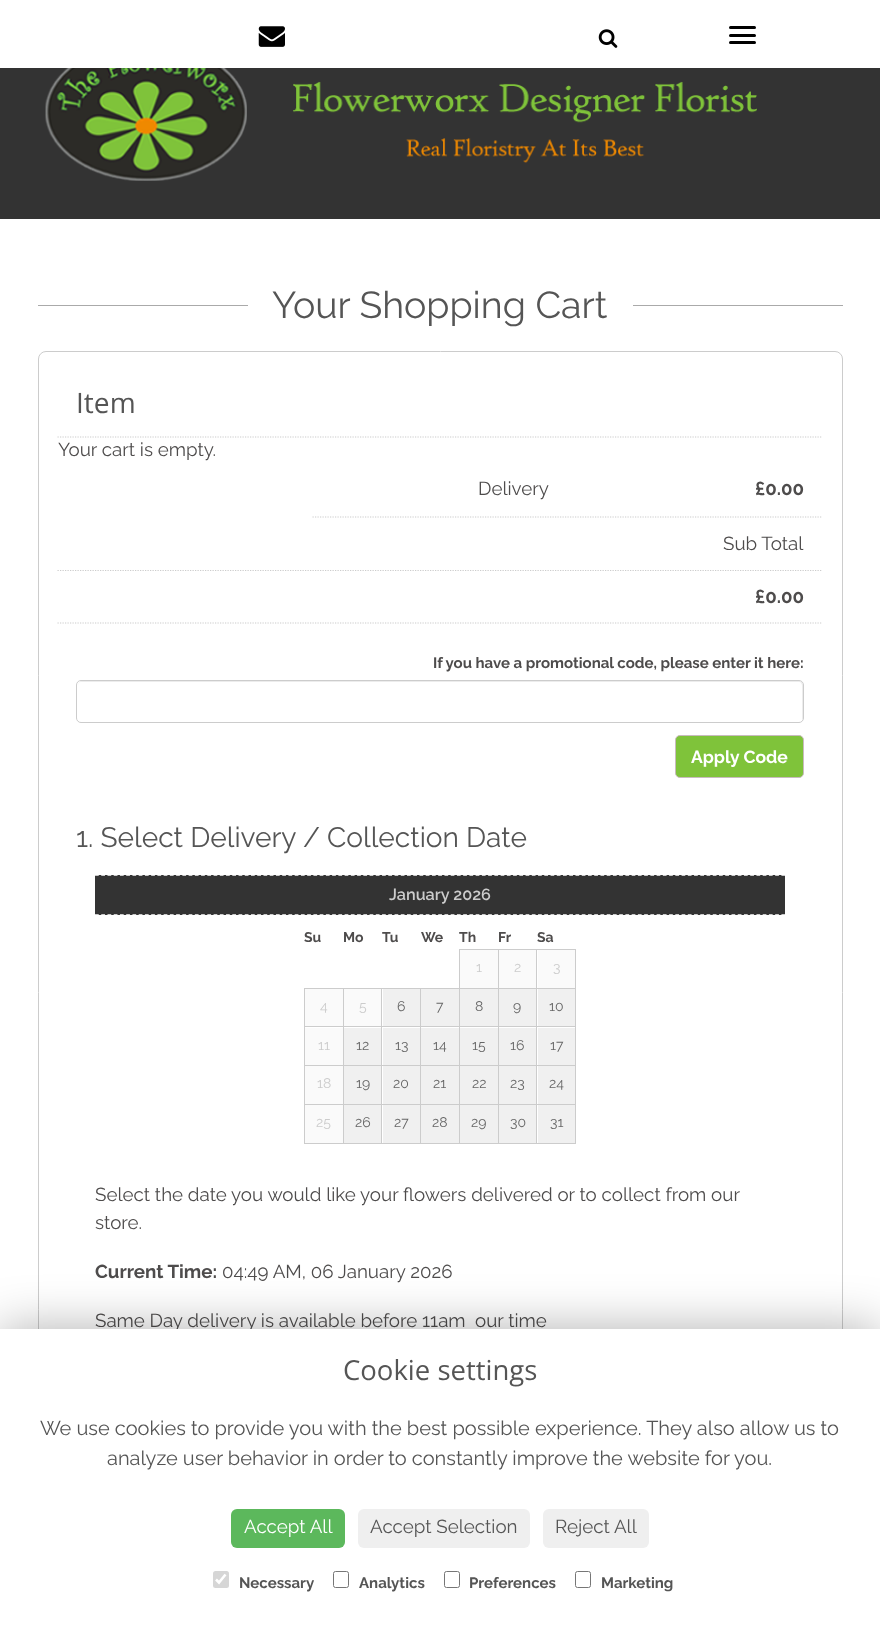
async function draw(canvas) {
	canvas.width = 880;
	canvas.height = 1625;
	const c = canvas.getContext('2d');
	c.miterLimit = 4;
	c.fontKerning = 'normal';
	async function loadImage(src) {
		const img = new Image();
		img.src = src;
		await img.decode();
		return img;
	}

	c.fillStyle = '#fff';
	c.fillRect(0, 0, 880, 1625);
	c.drawImage(await loadImage('img1.png'), 258, 26, 27, 21);
	c.drawImage(await loadImage('img2.png'), 598, 29, 20, 19);
	c.fillStyle = '#000';
	c.beginPath();
	c.roundRect(729, 26, 27, 3, 1.5);
	c.fill();
	c.beginPath();
	c.roundRect(729, 34, 27, 3, 1.5);
	c.fill();
	c.beginPath();
	c.roundRect(729, 41, 27, 3, 1.5);
	c.fill();
	c.fillStyle = '#333';
	c.fillRect(0, 68, 880, 151);
	c.drawImage(await loadImage('img3.png'), 45, 68, 712, 113);
	c.fillStyle = '#aaa';
	c.fillRect(38, 305, 210, 1);
	c.font = '37.5px Raleway';
	c.fillStyle = '#555';
	c.fillText('Your Shopping Cart', 272, 318);
	c.fillStyle = '#aaa';
	c.fillRect(633, 305, 210, 1);
	c.beginPath();
	c.roundRect(38.5, 351.5, 804, 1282, 7.5);
	c.strokeStyle = '#ccc';
	c.stroke();
	c.beginPath();
	c.moveTo(57.5, 437);
	c.lineTo(822.5, 437);
	c.lineWidth = 1.2;
	c.setLineDash([1.25, 1.25]);
	c.stroke();
	c.font = '28.1px Open Sans';
	c.fillStyle = '#555';
	c.fillText('Item', 76, 413);
	c.font = '18.75px Raleway';
	c.fillStyle = '#4e4c4c';
	c.fillText('Your cart is empty.', 58, 456);
	c.beginPath();
	c.moveTo(312.5, 517);
	c.lineTo(567.5, 517);
	c.stroke();
	c.fillText('Delivery', 478, 495);
	c.beginPath();
	c.moveTo(567.5, 517);
	c.lineTo(822.5, 517);
	c.stroke();
	c.font = 'bold 18.75px Raleway';
	c.fillText('£0.00', 755, 495);
	c.beginPath();
	c.moveTo(57.5, 570.5);
	c.lineTo(822.5, 570.5);
	c.stroke();
	c.font = '18.75px Raleway';
	c.fillText('Sub Total', 723, 550);
	c.beginPath();
	c.moveTo(57.5, 623);
	c.lineTo(822.5, 623);
	c.stroke();
	c.font = 'bold 18.75px Raleway';
	c.fillText('£0.00', 755, 603);
	c.font = 'bold 15px Raleway';
	c.fillText('If you have a promotional code, please enter it here:', 433, 668);
	c.fillStyle = '#ececec';
	c.beginPath();
	c.moveTo(81, 682);
	c.lineTo(799, 682);
	c.bezierCurveTo(801, 682, 802, 684, 802, 686);
	c.lineTo(802, 720);
	c.bezierCurveTo(803, 719, 803, 718, 803, 717);
	c.lineTo(803, 685);
	c.bezierCurveTo(803, 683, 801, 681, 799, 681);
	c.lineTo(82, 681);
	c.bezierCurveTo(80, 681, 78, 683, 78, 685);
	c.lineTo(78, 686);
	c.bezierCurveTo(78, 684, 79, 682, 81, 682);
	c.closePath();
	c.fill();
	c.beginPath();
	c.roundRect(76.5, 680.5, 727, 42, 4.5);
	c.lineWidth = 1;
	c.setLineDash([]);
	c.stroke();
	c.fillStyle = '#7fc33a';
	c.beginPath();
	c.roundRect(675.5, 735.5, 128, 42, 4.5);
	c.fill();
	c.strokeStyle = '#c8bbbe';
	c.stroke();
	c.font = 'bold 17.5px Raleway';
	c.fillStyle = '#fff';
	c.fillText('Apply Code', 691, 763);
	c.font = '28.1px Raleway';
	c.fillStyle = '#555';
	c.fillText('1. Select Delivery / Collection Date', 76, 847);
	c.fillStyle = '#333';
	c.fillRect(95, 875, 690, 40);
	c.beginPath();
	c.moveTo(95, 875.5);
	c.lineTo(785, 875.5);
	c.strokeStyle = '#ccc';
	c.lineWidth = 1.2;
	c.setLineDash([3.75, 2.49]);
	c.stroke();
	c.beginPath();
	c.moveTo(95, 914.5);
	c.lineTo(785, 914.5);
	c.stroke();
	c.font = '600 16.25px Raleway';
	c.fillStyle = '#ccc';
	c.fillText('January 2026', 389, 900);
	c.font = 'bold 14px Raleway';
	c.fillStyle = '#4e4c4c';
	for (const [text, x, y] of [
		['Su', 304, 942],
		['Mo', 343, 942],
		['Tu', 382, 942],
		['We', 421, 942],
		['Th', 459, 942],
		['Fr', 498, 942],
		['Sa', 537, 942],
	]) {
		c.fillText(text, x, y);
	}
	for (const [x, y, w, h, color] of [
		[536, 949, 40, 1, '#ccc'],
		[536, 988, 40, 1, '#ccc'],
		[536, 1026, 40, 1, '#ccc'],
		[536, 1065, 40, 1, '#ccc'],
		[536, 1104, 40, 1, '#ccc'],
		[575, 1104, 1, 40, '#ccc'],
		[536, 1143, 40, 1, '#ccc'],
		[536, 1104, 1, 40, '#ccc'],
		[498, 1104, 40, 1, '#ccc'],
		[536, 1065, 1, 40, '#ccc'],
		[498, 1065, 40, 1, '#ccc'],
		[536, 1026, 1, 40, '#ccc'],
		[498, 1026, 40, 1, '#ccc'],
		[536, 988, 1, 40, '#ccc'],
		[498, 988, 40, 1, '#ccc'],
		[536, 949, 1, 40, '#ccc'],
		[498, 949, 40, 1, '#ccc'],
		[498, 1143, 40, 1, '#ccc'],
		[498, 1104, 1, 40, '#ccc'],
		[459, 1104, 40, 1, '#ccc'],
		[498, 1065, 1, 40, '#ccc'],
		[459, 1065, 40, 1, '#ccc'],
		[498, 1026, 1, 40, '#ccc'],
		[459, 1026, 40, 1, '#ccc'],
		[498, 988, 1, 40, '#ccc'],
		[459, 988, 40, 1, '#ccc'],
		[498, 949, 1, 40, '#ccc'],
		[459, 949, 40, 1, '#ccc'],
		[459, 1143, 40, 1, '#ccc'],
		[459, 1104, 1, 40, '#ccc'],
		[420, 1104, 40, 1, '#ccc'],
		[459, 1065, 1, 40, '#ccc'],
		[420, 1065, 40, 1, '#ccc'],
		[459, 1026, 1, 40, '#ccc'],
		[420, 1026, 40, 1, '#ccc'],
		[459, 988, 1, 40, '#ccc'],
		[420, 988, 40, 1, '#ccc'],
		[459, 949, 1, 40, '#ccc'],
		[460, 950, 38, 38, '#fafafa'],
	]) {
		c.fillStyle = color;
		c.fillRect(x, y, w, h);
	}
	c.font = '14px Raleway';
	c.fillStyle = '#ccc';
	c.fillText('1', 476, 972);
	c.fillStyle = '#fafafa';
	c.fillRect(499, 950, 37, 38);
	c.fillStyle = '#ccc';
	c.fillText('2', 514, 972);
	for (const [x, y, w, h, color] of [
		[575, 1065, 1, 40, '#ccc'],
		[575, 1026, 1, 40, '#ccc'],
		[575, 988, 1, 40, '#ccc'],
		[575, 949, 1, 40, '#ccc'],
		[538, 950, 37, 38, '#fafafa'],
	]) {
		c.fillStyle = color;
		c.fillRect(x, y, w, h);
	}
	c.fillStyle = '#ccc';
	c.fillText('3', 553, 972);
	for (const [x, y, w, h, color] of [
		[420, 1143, 40, 1, '#ccc'],
		[420, 1104, 1, 40, '#ccc'],
		[381, 1104, 40, 1, '#ccc'],
		[420, 1065, 1, 40, '#ccc'],
		[381, 1065, 40, 1, '#ccc'],
		[420, 1026, 1, 40, '#ccc'],
		[381, 1026, 40, 1, '#ccc'],
		[420, 988, 1, 40, '#ccc'],
		[381, 988, 40, 1, '#ccc'],
		[381, 1143, 40, 1, '#ccc'],
		[381, 1104, 1, 40, '#ccc'],
		[343, 1104, 40, 1, '#ccc'],
		[381, 1065, 1, 40, '#ccc'],
		[343, 1065, 40, 1, '#ccc'],
		[381, 1026, 1, 40, '#ccc'],
		[343, 1026, 40, 1, '#ccc'],
		[381, 988, 1, 40, '#ccc'],
		[343, 988, 40, 1, '#ccc'],
		[343, 1143, 40, 1, '#ccc'],
		[343, 1104, 1, 40, '#ccc'],
		[304, 1104, 40, 1, '#ccc'],
		[343, 1065, 1, 40, '#ccc'],
		[304, 1065, 40, 1, '#ccc'],
		[343, 1026, 1, 40, '#ccc'],
		[304, 1026, 40, 1, '#ccc'],
		[343, 988, 1, 40, '#ccc'],
		[304, 988, 40, 1, '#ccc'],
		[304, 1143, 40, 1, '#ccc'],
		[304, 1104, 1, 40, '#ccc'],
		[304, 1065, 1, 40, '#ccc'],
		[304, 1026, 1, 40, '#ccc'],
		[304, 988, 1, 40, '#ccc'],
		[305, 989, 38, 37, '#fafafa'],
	]) {
		c.fillStyle = color;
		c.fillRect(x, y, w, h);
	}
	c.fillStyle = '#ccc';
	c.fillText('4', 320, 1011);
	c.fillStyle = '#fafafa';
	c.fillRect(344, 989, 37, 37);
	c.fillStyle = '#ccc';
	c.fillText('5', 359, 1011);
	c.fillStyle = '#f0f0f0';
	c.fillRect(383, 989, 37, 37);
	c.fillStyle = '#666';
	c.fillText('6', 397, 1011);
	c.fillStyle = '#f0f0f0';
	c.fillRect(421, 989, 38, 37);
	c.fillStyle = '#666';
	c.fillText('7', 436, 1011);
	c.fillStyle = '#f0f0f0';
	c.fillRect(460, 989, 38, 37);
	c.fillStyle = '#666';
	c.fillText('8', 475, 1011);
	c.fillStyle = '#f0f0f0';
	c.fillRect(499, 989, 37, 37);
	c.fillStyle = '#666';
	c.fillText('9', 513, 1011);
	c.fillStyle = '#f0f0f0';
	c.fillRect(538, 989, 37, 37);
	c.fillStyle = '#666';
	c.fillText('10', 549, 1011);
	c.fillStyle = '#fafafa';
	c.fillRect(305, 1028, 38, 37);
	c.fillStyle = '#ccc';
	c.fillText('11', 318, 1050);
	c.fillStyle = '#f0f0f0';
	c.fillRect(344, 1028, 37, 37);
	c.fillStyle = '#666';
	c.fillText('12', 356, 1050);
	c.fillStyle = '#f0f0f0';
	c.fillRect(383, 1028, 37, 37);
	c.fillStyle = '#666';
	c.fillText('13', 395, 1050);
	c.fillStyle = '#f0f0f0';
	c.fillRect(421, 1028, 38, 37);
	c.fillStyle = '#666';
	c.fillText('14', 433, 1050);
	c.fillStyle = '#f0f0f0';
	c.fillRect(460, 1028, 38, 37);
	c.fillStyle = '#666';
	c.fillText('15', 472, 1050);
	c.fillStyle = '#f0f0f0';
	c.fillRect(499, 1028, 37, 37);
	c.fillStyle = '#666';
	c.fillText('16', 510, 1050);
	c.fillStyle = '#f0f0f0';
	c.fillRect(538, 1028, 37, 37);
	c.fillStyle = '#666';
	c.fillText('17', 550, 1050);
	c.fillStyle = '#fafafa';
	c.fillRect(305, 1066, 38, 38);
	c.fillStyle = '#ccc';
	c.fillText('18', 317, 1088);
	c.fillStyle = '#f0f0f0';
	c.fillRect(344, 1066, 37, 38);
	c.fillStyle = '#666';
	c.fillText('19', 356, 1088);
	c.fillStyle = '#f0f0f0';
	c.fillRect(383, 1066, 37, 38);
	c.fillStyle = '#666';
	c.fillText('20', 393, 1088);
	c.fillStyle = '#f0f0f0';
	c.fillRect(421, 1066, 38, 38);
	c.fillStyle = '#666';
	c.fillText('21', 433, 1088);
	c.fillStyle = '#f0f0f0';
	c.fillRect(460, 1066, 38, 38);
	c.fillStyle = '#666';
	c.fillText('22', 472, 1088);
	c.fillStyle = '#f0f0f0';
	c.fillRect(499, 1066, 37, 38);
	c.fillStyle = '#666';
	c.fillText('23', 510, 1088);
	c.fillStyle = '#f0f0f0';
	c.fillRect(538, 1066, 37, 38);
	c.fillStyle = '#666';
	c.fillText('24', 549, 1088);
	c.fillStyle = '#fafafa';
	c.fillRect(305, 1105, 38, 38);
	c.fillStyle = '#ccc';
	c.fillText('25', 316, 1127);
	c.fillStyle = '#f0f0f0';
	c.fillRect(344, 1105, 37, 38);
	c.fillStyle = '#666';
	c.fillText('26', 355, 1127);
	c.fillStyle = '#f0f0f0';
	c.fillRect(383, 1105, 37, 38);
	c.fillStyle = '#666';
	c.fillText('27', 394, 1127);
	c.fillStyle = '#f0f0f0';
	c.fillRect(421, 1105, 38, 38);
	c.fillStyle = '#666';
	c.fillText('28', 432, 1127);
	c.fillStyle = '#f0f0f0';
	c.fillRect(460, 1105, 38, 38);
	c.fillStyle = '#666';
	c.fillText('29', 471, 1127);
	c.fillStyle = '#f0f0f0';
	c.fillRect(499, 1105, 37, 38);
	c.fillStyle = '#666';
	c.fillText('30', 510, 1127);
	c.fillStyle = '#f0f0f0';
	c.fillRect(538, 1105, 37, 38);
	c.fillStyle = '#666';
	c.fillText('31', 550, 1127);
	c.font = '18.75px Raleway';
	c.fillStyle = '#4e4c4c';
	c.fillText('Select the date you would like your flowers delivered or to collect from our', 95, 1201);
	c.fillText('store.', 95, 1229);
	c.font = 'bold 18.75px Raleway';
	c.fillText('Current Time:', 95, 1278);
	c.font = '18.75px Raleway';
	for (const [text, x, y] of [
		['04:49 AM, 06 January 2026', 222, 1278],
		['Same Day delivery is available before 11am', 95, 1327],
		['our time', 475, 1327],
	]) {
		c.fillText(text, x, y);
	}
	c.fillStyle = '#0000004f';
	c.filter = 'blur(25px)';
	c.beginPath();
	c.rect(0, 1329, 880, 296);
	c.fill();
	c.filter = 'none';
	c.fillStyle = '#fff';
	c.fillRect(0, 1329, 880, 296);
	c.font = '27.5px Open Sans';
	c.fillStyle = '#555';
	c.fillText('Cookie settings', 343, 1380);
	c.font = '20px Raleway';
	c.fillText('We use cookies to provide you with the best possible experience. They also allow us to', 40, 1435);
	c.fillText('analyze user behavior in order to constantly improve the website for you.', 107, 1465);
	c.fillStyle = '#5cb85c';
	c.beginPath();
	c.roundRect(231, 1509, 114, 39, 6);
	c.fill();
	c.font = '18.75px Raleway';
	c.fillStyle = '#fff';
	c.fillText('Accept All', 244, 1533);
	c.fillStyle = '#efefef';
	c.beginPath();
	c.roundRect(358, 1509, 172, 39, 6);
	c.fill();
	c.fillStyle = '#555';
	c.fillText('Accept Selection', 370, 1533);
	c.fillStyle = '#efefef';
	c.beginPath();
	c.roundRect(543, 1509, 106, 39, 6);
	c.fill();
	c.fillStyle = '#555';
	c.fillText('Reject All', 555, 1533);
	c.fillStyle = '#d6d6d6';
	c.beginPath();
	c.roundRect(213, 1571, 16, 17, 2.5);
	c.fill();
	c.beginPath();
	c.moveTo(216, 1579.5);
	c.lineTo(219, 1582.5);
	c.lineTo(225.5, 1574.5);
	c.strokeStyle = '#fff';
	c.lineWidth = 2.6;
	c.setLineDash([]);
	c.stroke();
	c.font = 'bold 15px Raleway';
	c.fillStyle = '#555';
	c.fillText('Necessary', 239, 1588);
	c.beginPath();
	c.roundRect(333.5, 1571.5, 15, 16, 2);
	c.strokeStyle = '#767676';
	c.lineWidth = 1;
	c.stroke();
	c.fillText('Analytics', 359, 1588);
	c.beginPath();
	c.roundRect(444.5, 1571.5, 15, 16, 2);
	c.stroke();
	c.fillText('Preferences', 469, 1588);
	c.beginPath();
	c.roundRect(575.5, 1571.5, 15, 16, 2);
	c.stroke();
	c.fillText('Marketing', 601, 1588);
}

draw(document.querySelector('canvas'));
